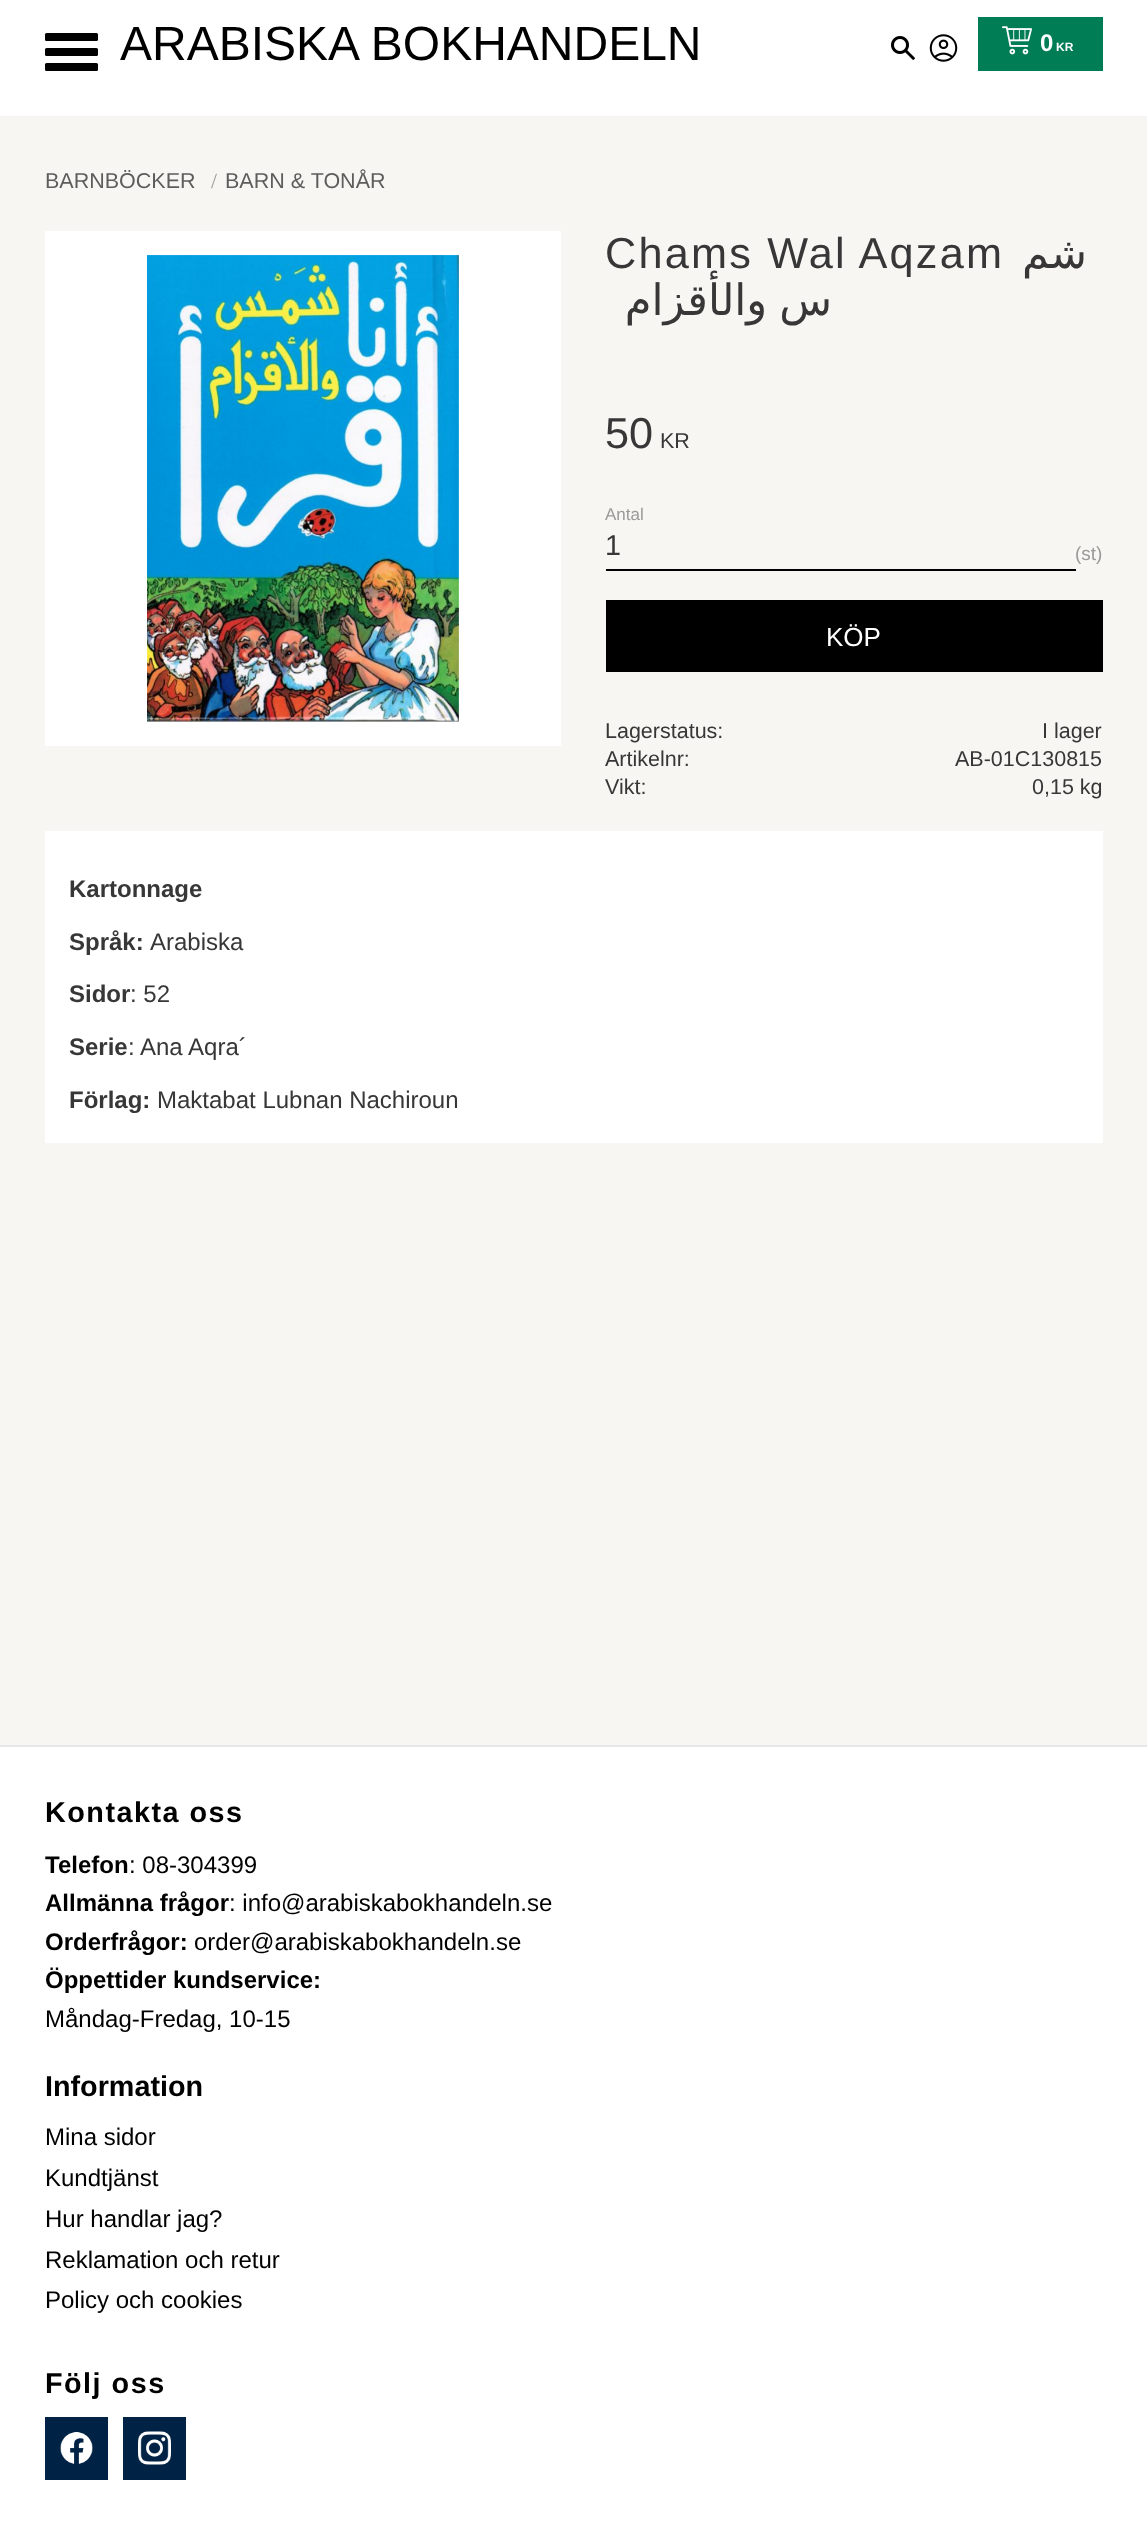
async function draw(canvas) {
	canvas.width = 1147;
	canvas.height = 2527;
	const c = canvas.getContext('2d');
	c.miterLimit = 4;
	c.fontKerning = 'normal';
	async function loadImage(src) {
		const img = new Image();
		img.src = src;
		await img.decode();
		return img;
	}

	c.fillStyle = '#fff';
	c.fillRect(0, 0, 1147, 2527);
	c.fillStyle = '#f2f2f2';
	c.fillRect(0, 116, 1147, 1);
	c.fillStyle = '#000';
	c.beginPath();
	c.roundRect(45, 48, 53, 8, 1.5);
	c.fill();
	c.beginPath();
	c.roundRect(45, 33, 53, 8, 1.5);
	c.fill();
	c.beginPath();
	c.roundRect(45, 63, 53, 8, 1.5);
	c.fill();
	c.font = '48px Liberation Sans';
	c.fillText('ARABISKA BOKHANDELN', 120, 60);
	c.drawImage(await loadImage('img1.png'), 891, 36, 24, 24);
	c.drawImage(await loadImage('img2.png'), 929, 34, 29, 28);
	c.fillStyle = '#007d55';
	c.fillRect(978, 17, 125, 54);
	c.drawImage(await loadImage('img3.png'), 1002, 26, 30, 29);
	c.font = 'bold 24px Liberation Sans';
	c.fillStyle = '#fff';
	c.fillText('0', 1040, 51);
	c.font = 'bold 12px Liberation Sans';
	c.fillText('KR', 1056, 51);
	c.fillStyle = '#f7f6f2';
	c.fillRect(0, 117, 1147, 1628);
	c.font = '21.5px Liberation Sans';
	c.fillStyle = '#5d5d5c';
	c.fillText('BARNBÖCKER', 45, 188);
	c.font = '21.5px Liberation Serif';
	c.fillStyle = '#9b9a98';
	c.fillText('/', 211, 188);
	c.font = '21.5px Liberation Sans';
	c.fillStyle = '#5d5d5c';
	c.fillText('BARN & TONÅR', 225, 188);
	c.letterSpacing = '2.2px';
	c.font = '43.25px Liberation Sans';
	c.fillStyle = '#373737';
	c.fillText('Chams Wal Aqzam', 605, 268);
	c.direction = 'rtl';
	c.font = '43.25px DejaVu Sans';
	c.fillText('شم', 1087, 268);
	c.wordSpacing = '-4px';
	c.fillText('س والأقزام', 832, 315);
	c.fillStyle = '#fff';
	c.fillRect(45, 231, 516, 515);
	c.drawImage(await loadImage('img4.png'), 147, 255, 312, 467);
	c.letterSpacing = '0px';
	c.wordSpacing = '0px';
	c.direction = 'ltr';
	c.font = '43.25px Liberation Sans';
	c.fillStyle = '#373737';
	c.fillText('50', 605, 448);
	c.font = '21.5px Liberation Sans';
	c.fillText('KR', 660, 448);
	c.font = '17px Liberation Sans';
	c.fillStyle = '#9b9a98';
	c.fillText('Antal', 605, 520);
	c.fillStyle = '#000';
	c.fillRect(606, 569, 470, 2);
	c.font = '28.75px Liberation Sans';
	c.fillStyle = '#373737';
	c.fillText('1', 605, 555);
	c.font = '19px Liberation Sans';
	c.fillStyle = '#9b9a98';
	c.fillText('(st)', 1075, 560);
	c.fillStyle = '#000';
	c.fillRect(606, 600, 497, 72);
	c.font = '26px Liberation Sans';
	c.fillStyle = '#fff';
	c.fillText('KÖP', 826, 646);
	c.font = '21.5px Liberation Sans';
	c.fillStyle = '#373737';
	for (const [text, x, y] of [
		['Lagerstatus:', 605, 738],
		['I lager', 1042, 738],
		['Artikelnr:', 605, 766],
		['AB-01C130815', 955, 766],
		['Vikt:', 605, 794],
		['0,15 kg', 1032, 794],
	]) {
		c.fillText(text, x, y);
	}
	c.fillStyle = '#fff';
	c.fillRect(45, 831, 1058, 312);
	c.font = 'bold 24px Liberation Sans';
	c.fillStyle = '#373737';
	c.fillText('Kartonnage', 69, 897);
	c.fillText('Språk:', 69, 950);
	c.font = '24px Liberation Sans';
	c.fillText('Arabiska', 150, 950);
	c.font = 'bold 24px Liberation Sans';
	c.fillText('Sidor', 69, 1002);
	c.font = '24px Liberation Sans';
	c.fillText(': 52', 130, 1002);
	c.font = 'bold 24px Liberation Sans';
	c.fillText('Serie', 69, 1055);
	c.font = '24px Liberation Sans';
	c.fillText(': Ana Aqra´', 128, 1055);
	c.font = 'bold 24px Liberation Sans';
	c.fillText('Förlag:', 69, 1108);
	c.font = '24px Liberation Sans';
	c.fillText('Maktabat Lubnan Nachiroun', 157, 1108);
	c.fillStyle = '#e6e6e6';
	c.fillRect(0, 1745, 1147, 2);
	c.letterSpacing = '1.5px';
	c.font = 'bold 28.75px Liberation Sans';
	c.fillStyle = '#000';
	c.fillText('Kontakta oss', 45, 1822);
	c.letterSpacing = '0px';
	c.font = 'bold 24px Liberation Sans';
	c.fillText('Telefon', 45, 1873);
	c.font = '24px Liberation Sans';
	c.fillText(': 08-304399', 129, 1873);
	c.font = 'bold 24px Liberation Sans';
	c.fillText('Allmänna frågor', 45, 1911);
	c.font = '24px Liberation Sans';
	c.fillText(': info@arabiskabokhandeln.se', 229, 1911);
	c.font = 'bold 24px Liberation Sans';
	c.fillText('Orderfrågor:', 45, 1950);
	c.font = '24px Liberation Sans';
	c.fillText('order@arabiskabokhandeln.se', 194, 1950);
	c.font = 'bold 24px Liberation Sans';
	c.fillText('Öppettider kundservice:', 45, 1988);
	c.font = '24px Liberation Sans';
	c.fillText('Måndag-Fredag, 10-15', 45, 2027);
	c.font = 'bold 28.75px Liberation Sans';
	c.fillText('Information', 45, 2096);
	c.font = '24px Liberation Sans';
	for (const [text, x, y] of [
		['Mina sidor', 45, 2145],
		['Kundtjänst', 45, 2186],
		['Hur handlar jag?', 45, 2227],
		['Reklamation och retur', 45, 2268],
		['Policy och cookies', 45, 2308],
	]) {
		c.fillText(text, x, y);
	}
	c.letterSpacing = '1.5px';
	c.font = 'bold 28.75px Liberation Sans';
	c.fillText('Följ oss', 45, 2393);
	c.fillStyle = '#024';
	c.fillRect(45, 2417, 63, 63);
	c.drawImage(await loadImage('img5.png'), 60, 2432, 33, 32);
	c.fillRect(123, 2417, 63, 63);
	c.drawImage(await loadImage('img6.png'), 138, 2431, 33, 34);
}

draw(document.querySelector('canvas'));
